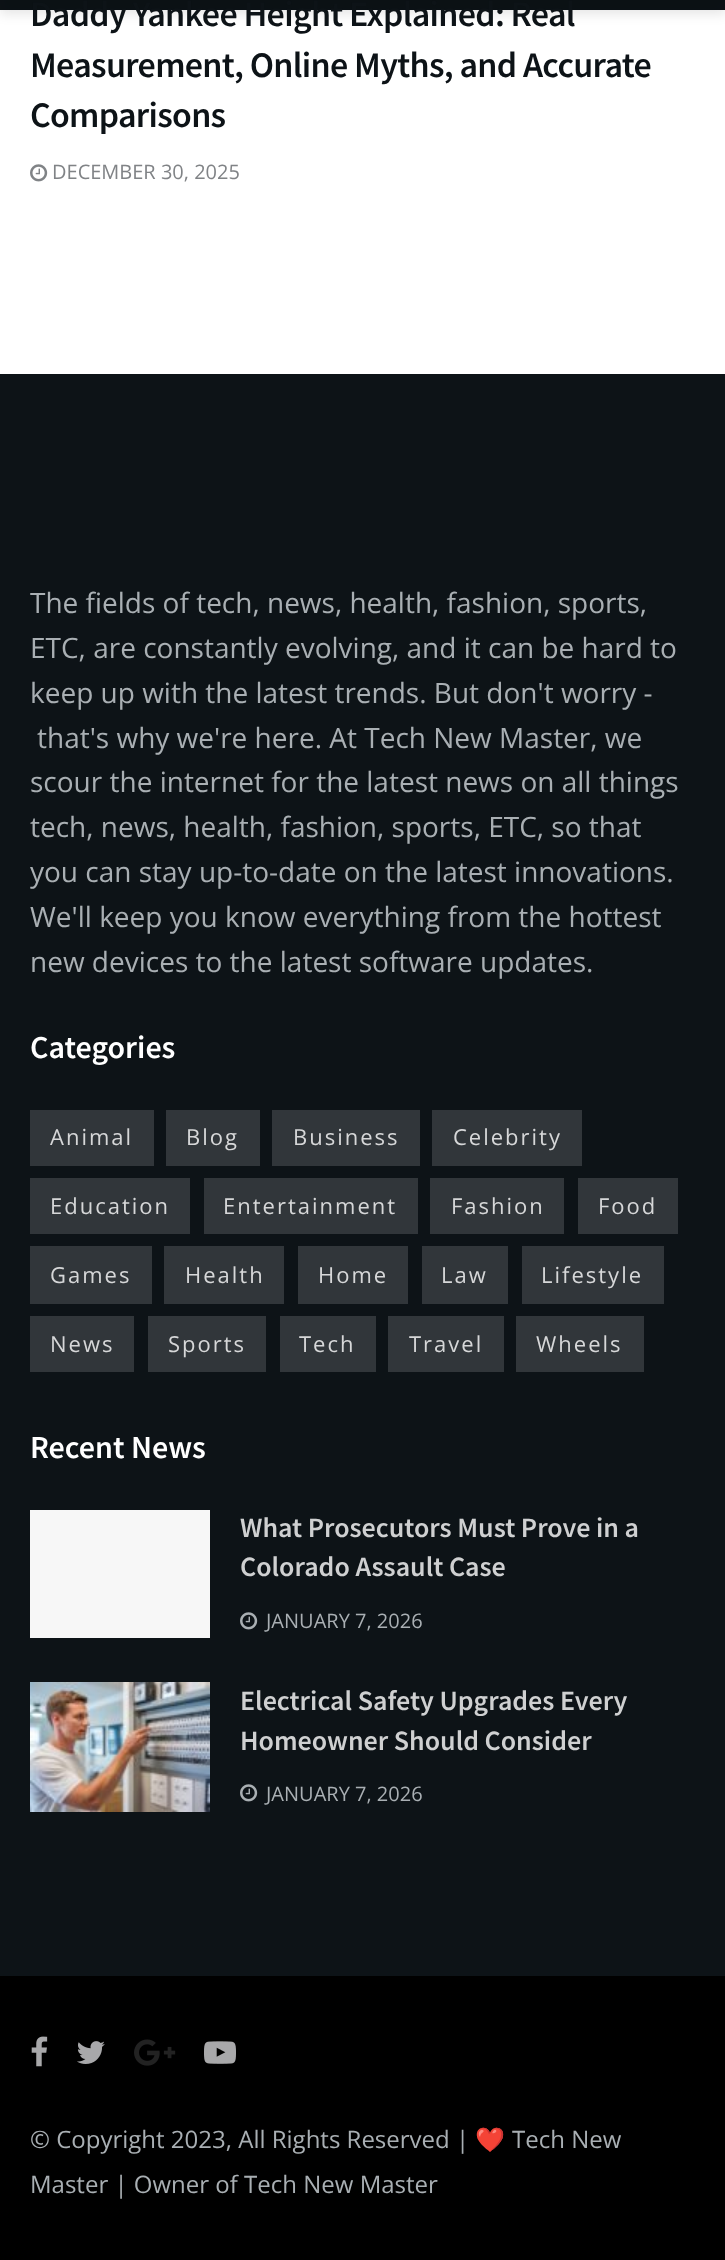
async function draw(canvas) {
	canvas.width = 725;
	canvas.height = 2260;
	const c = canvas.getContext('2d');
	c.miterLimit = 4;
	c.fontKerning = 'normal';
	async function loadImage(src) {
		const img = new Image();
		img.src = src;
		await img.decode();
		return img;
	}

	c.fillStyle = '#0d1317';
	c.fillRect(0, 0, 725, 2260);
	c.fillStyle = '#fff';
	c.fillRect(0, 10, 725, 364);
	c.fillStyle = '#0000001a';
	c.filter = 'blur(6px)';
	c.beginPath();
	c.rect(0, -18, 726, 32);
	c.fill();
	c.filter = 'none';
	c.letterSpacing = '-0.7px';
	c.font = '600 36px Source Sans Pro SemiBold';
	c.fillStyle = '#0d1317';
	for (const [text, x, y] of [
		['Daddy Yankee Height Explained: Real', 30, 26],
		['Measurement, Online Myths, and Accurate', 30, 77],
		['Comparisons', 30, 127],
	]) {
		c.fillText(text, x, y);
	}
	c.drawImage(await loadImage('img1.png'), 30, 164, 18, 18);
	c.letterSpacing = '0px';
	c.font = '20px Open Sans';
	c.fillStyle = '#808386';
	c.fillText('DECEMBER 30, 2025', 52, 179);
	c.font = '28px Open Sans';
	c.fillStyle = '#a9afb3';
	for (const [text, x, y] of [
		['The fields of tech, news, health, fashion, sports,', 30, 613],
		['ETC, are constantly evolving, and it can be hard to', 30, 658],
		['keep up with the latest trends. But don\'t worry -', 30, 703],
		['that\'s why we\'re here. At Tech New Master, we', 37, 748],
		['scour the internet for the latest news on all things', 30, 792],
		['tech, news, health, fashion, sports, ETC, so that', 30, 837],
		['you can stay up-to-date on the latest innovations.', 30, 882],
		['We\'ll keep you know everything from the hottest', 30, 927],
		['new devices to the latest software updates.', 30, 972],
	]) {
		c.fillText(text, x, y);
	}
	c.font = '600 32px Source Sans Pro SemiBold';
	c.fillStyle = '#fff';
	c.fillText('Categories', 30, 1058);
	c.fillStyle = '#31363a';
	c.fillRect(30, 1110, 124, 56);
	c.letterSpacing = '2px';
	c.font = '22px Open Sans';
	c.fillStyle = '#d6d7d8';
	c.fillText('Animal', 50, 1145);
	c.fillStyle = '#31363a';
	c.fillRect(166, 1110, 94, 56);
	c.fillStyle = '#d6d7d8';
	c.fillText('Blog', 186, 1145);
	c.fillStyle = '#31363a';
	c.fillRect(272, 1110, 148, 56);
	c.fillStyle = '#d6d7d8';
	c.fillText('Business', 293, 1145);
	c.fillStyle = '#31363a';
	c.fillRect(432, 1110, 150, 56);
	c.fillStyle = '#d6d7d8';
	c.fillText('Celebrity', 453, 1145);
	c.fillStyle = '#31363a';
	c.fillRect(30, 1178, 160, 56);
	c.fillStyle = '#d6d7d8';
	c.fillText('Education', 50, 1214);
	c.fillStyle = '#31363a';
	c.fillRect(204, 1178, 214, 56);
	c.fillStyle = '#d6d7d8';
	c.fillText('Entertainment', 223, 1214);
	c.fillStyle = '#31363a';
	c.fillRect(430, 1178, 134, 56);
	c.fillStyle = '#d6d7d8';
	c.fillText('Fashion', 451, 1214);
	c.fillStyle = '#31363a';
	c.fillRect(578, 1178, 100, 56);
	c.fillStyle = '#d6d7d8';
	c.fillText('Food', 598, 1214);
	c.fillStyle = '#31363a';
	c.fillRect(30, 1246, 122, 58);
	c.fillStyle = '#d6d7d8';
	c.fillText('Games', 50, 1283);
	c.fillStyle = '#31363a';
	c.fillRect(164, 1246, 120, 58);
	c.fillStyle = '#d6d7d8';
	c.fillText('Health', 185, 1283);
	c.fillStyle = '#31363a';
	c.fillRect(298, 1246, 110, 58);
	c.fillStyle = '#d6d7d8';
	c.fillText('Home', 318, 1283);
	c.fillStyle = '#31363a';
	c.fillRect(422, 1246, 86, 58);
	c.fillStyle = '#d6d7d8';
	c.fillText('Law', 441, 1283);
	c.fillStyle = '#31363a';
	c.fillRect(522, 1246, 142, 58);
	c.fillStyle = '#d6d7d8';
	c.fillText('Lifestyle', 541, 1283);
	c.fillStyle = '#31363a';
	c.fillRect(30, 1316, 104, 56);
	c.fillStyle = '#d6d7d8';
	c.fillText('News', 50, 1352);
	c.fillStyle = '#31363a';
	c.fillRect(148, 1316, 118, 56);
	c.fillStyle = '#d6d7d8';
	c.fillText('Sports', 168, 1352);
	c.fillStyle = '#31363a';
	c.fillRect(280, 1316, 96, 56);
	c.fillStyle = '#d6d7d8';
	c.fillText('Tech', 299, 1352);
	c.fillStyle = '#31363a';
	c.fillRect(388, 1316, 116, 56);
	c.fillStyle = '#d6d7d8';
	c.fillText('Travel', 409, 1352);
	c.fillStyle = '#31363a';
	c.fillRect(516, 1316, 128, 56);
	c.fillStyle = '#d6d7d8';
	c.fillText('Wheels', 536, 1352);
	c.letterSpacing = '0px';
	c.font = '600 32px Source Sans Pro SemiBold';
	c.fillStyle = '#fff';
	c.fillText('Recent News', 30, 1458);
	c.fillStyle = '#f7f7f7';
	c.fillRect(30, 1510, 180, 128);
	c.font = '600 28px Source Sans Pro SemiBold';
	c.fillStyle = '#cfd0d1';
	c.fillText('What Prosecutors Must Prove in a', 240, 1537);
	c.fillText('Colorado Assault Case', 240, 1576);
	c.drawImage(await loadImage('img2.png'), 240, 1612, 18, 18);
	c.font = '20px Open Sans';
	c.fillStyle = '#a9afb3';
	c.fillText('JANUARY 7, 2026', 266, 1628);
	c.drawImage(await loadImage('img3.png'), 30, 1682, 180, 130);
	c.font = '600 28px Source Sans Pro SemiBold';
	c.fillStyle = '#cfd0d1';
	c.fillText('Electrical Safety Upgrades Every', 240, 1710);
	c.fillText('Homeowner Should Consider', 240, 1750);
	c.drawImage(await loadImage('img2.png'), 240, 1784, 18, 18);
	c.font = '20px Open Sans';
	c.fillStyle = '#a9afb3';
	c.fillText('JANUARY 7, 2026', 266, 1801);
	c.fillStyle = '#000';
	c.fillRect(0, 1976, 725, 284);
	c.drawImage(await loadImage('img4.png'), 31, 2036, 17, 31);
	c.drawImage(await loadImage('img5.png'), 77, 2041, 28, 23);
	c.drawImage(await loadImage('img6.png'), 134, 2039, 42, 27);
	c.drawImage(await loadImage('img7.png'), 204, 2041, 32, 23);
	c.font = '24px Open Sans';
	c.fillStyle = '#a9afb3';
	c.fillText('© Copyright 2023, All Rights Reserved |', 30, 2148);
	c.font = '24px Noto Color Emoji';
	c.fillText('❤️️', 475, 2148);
	c.font = '24px Open Sans';
	c.fillText('Tech New', 512, 2148);
	c.fillText('Master | Owner of Tech New Master', 30, 2193);
}

draw(document.querySelector('canvas'));
